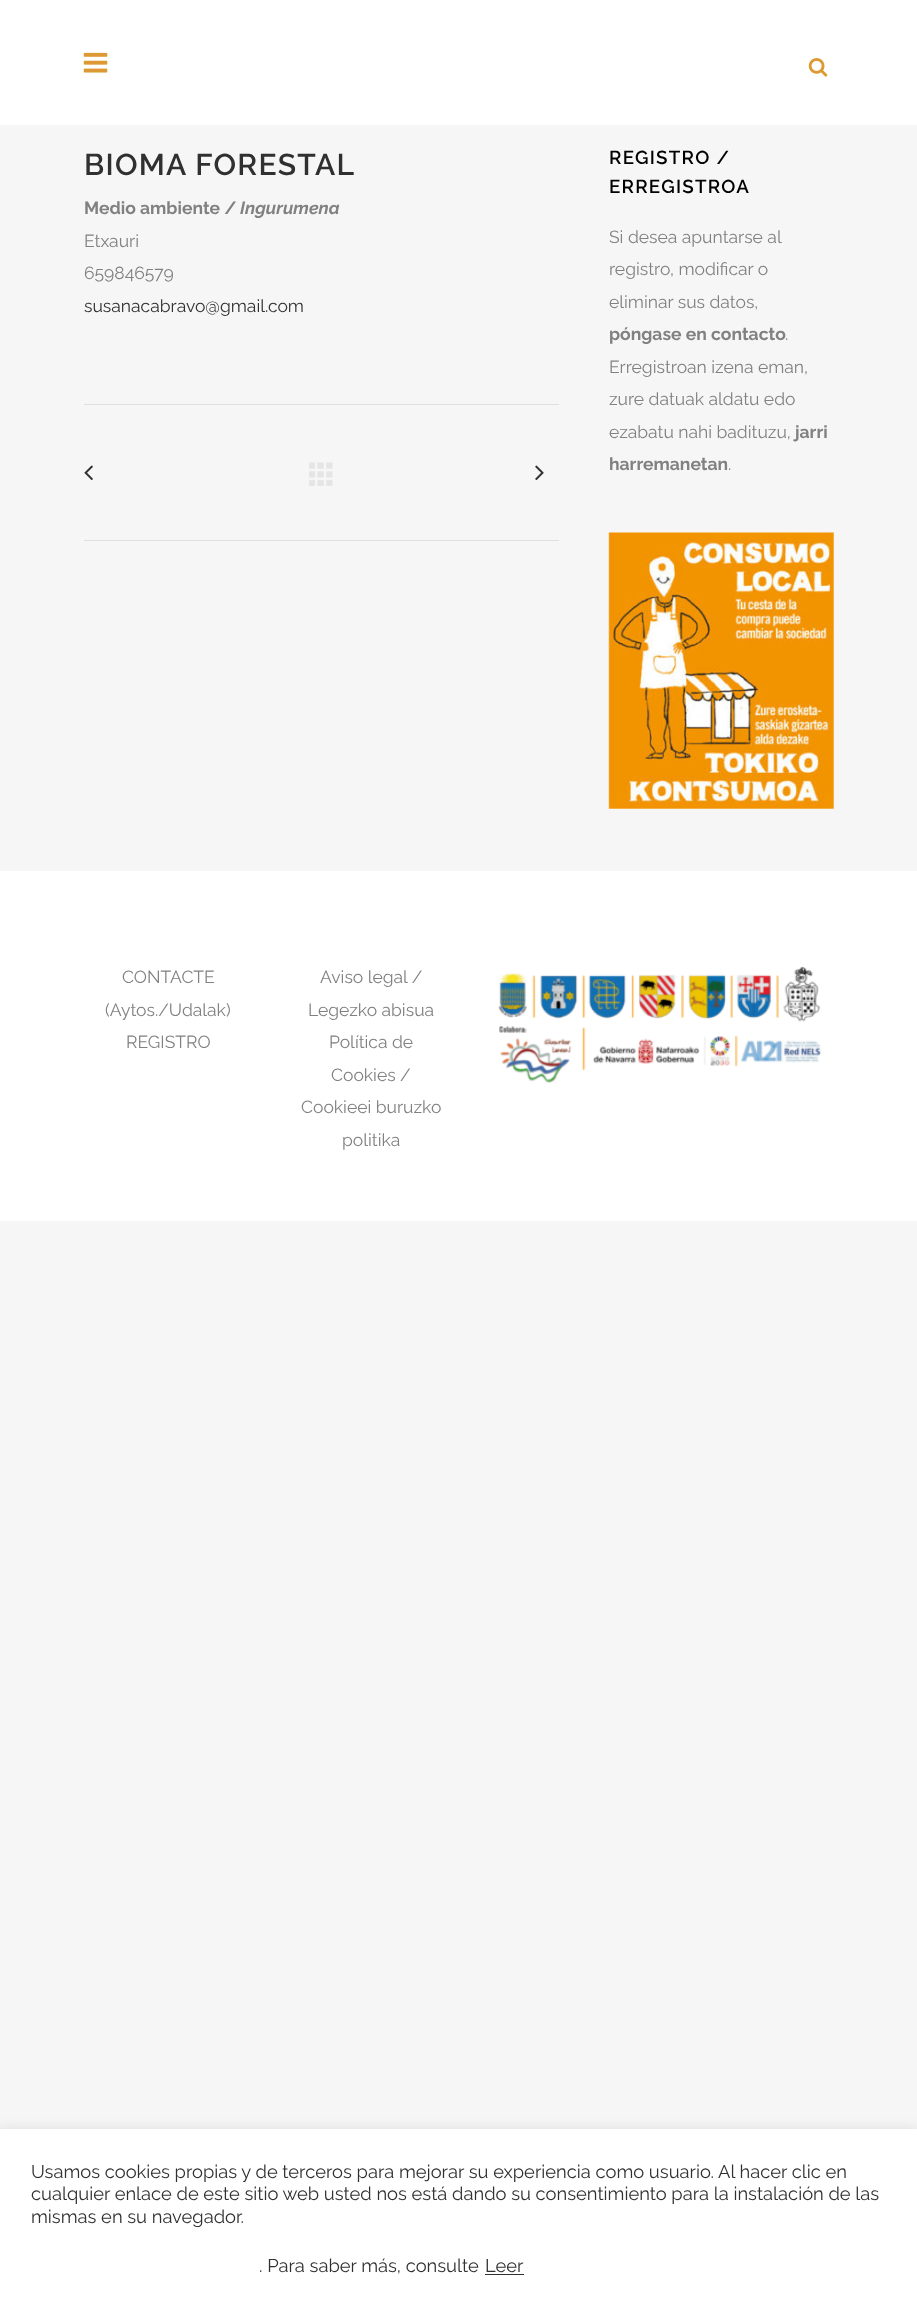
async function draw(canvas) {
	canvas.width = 917;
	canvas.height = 2322;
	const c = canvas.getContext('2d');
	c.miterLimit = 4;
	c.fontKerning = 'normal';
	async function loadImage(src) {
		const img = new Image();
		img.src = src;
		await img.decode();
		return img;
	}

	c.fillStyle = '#f6f6f6';
	c.fillRect(0, 0, 917, 2322);
	c.fillStyle = '#fff';
	c.fillRect(0, 0, 917, 125);
	c.drawImage(await loadImage('img1.png'), 83, 52, 25, 21);
	c.drawImage(await loadImage('img2.png'), 808, 58, 20, 19);
	c.letterSpacing = '1.25px';
	c.font = '600 30px Raleway';
	c.fillStyle = '#303030';
	c.fillText('BIOMA FORESTAL', 84, 175);
	c.letterSpacing = '0px';
	c.font = 'bold 17.5px Raleway';
	c.fillStyle = '#818181';
	c.fillText('Medio ambiente /', 84, 214);
	c.font = 'italic bold 17.5px Raleway';
	c.fillText('Ingurumena', 240, 214);
	c.font = '17.5px Raleway';
	c.fillText('Etxauri', 84, 247);
	c.fillText('659846579', 84, 279);
	c.fillStyle = '#303030';
	c.fillText('susanacabravo@gmail.com', 84, 312);
	c.fillStyle = '#e0e0e0';
	c.fillRect(84, 404, 475, 1);
	c.fillRect(84, 540, 475, 1);
	c.drawImage(await loadImage('img3.png'), 84, 465, 9, 16);
	c.drawImage(await loadImage('img4.png'), 309, 462, 24, 24);
	c.drawImage(await loadImage('img5.png'), 535, 465, 9, 16);
	c.letterSpacing = '1.25px';
	c.font = '600 18.75px Raleway';
	c.fillStyle = '#000';
	c.fillText('REGISTRO /', 609, 164);
	c.fillText('ERREGISTROA', 609, 193);
	c.letterSpacing = '0px';
	c.font = '17.5px Raleway';
	c.fillStyle = '#818181';
	for (const [text, x, y] of [
		['Si desea apuntarse al', 609, 243],
		['registro, modificar o', 609, 275],
		['eliminar sus datos,', 609, 308],
	]) {
		c.fillText(text, x, y);
	}
	c.font = 'bold 17.5px Raleway';
	c.fillText('póngase en contacto', 609, 340);
	c.font = '17.5px Raleway';
	for (const [text, x, y] of [
		['.', 785, 340],
		['Erregistroan izena eman,', 609, 373],
		['zure datuak aldatu edo', 609, 405],
		['ezabatu nahi badituzu,', 609, 438],
	]) {
		c.fillText(text, x, y);
	}
	c.font = 'bold 17.5px Raleway';
	c.fillText('jarri', 795, 438);
	c.fillText('harremanetan', 609, 470);
	c.font = '17.5px Raleway';
	c.fillText('.', 728, 470);
	c.drawImage(await loadImage('img6.png'), 608, 532, 226, 277);
	c.fillStyle = '#fff';
	c.fillRect(0, 871, 917, 350);
	c.fillStyle = '#818181';
	for (const [text, x, y] of [
		['CONTACTE', 122, 983],
		['(Aytos./Udalak)', 105, 1016],
		['REGISTRO', 126, 1048],
		['Aviso legal /', 320, 983],
		['Legezko abisua', 308, 1016],
		['Política de', 329, 1048],
		['Cookies /', 331, 1081],
		['Cookieei buruzko', 301, 1113],
		['politika', 342, 1146],
	]) {
		c.fillText(text, x, y);
	}
	c.drawImage(await loadImage('img7.png'), 498, 966, 324, 117);
	c.fillStyle = '#acabab4d';
	c.filter = 'blur(6px)';
	c.beginPath();
	c.rect(0, 2128, 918, 193);
	c.fill();
	c.filter = 'none';
	c.fillStyle = '#fff';
	c.fillRect(0, 2129, 917, 193);
	c.font = '18.35px Raleway';
	c.fillStyle = '#303030';
	for (const [text, x, y] of [
		['Usamos cookies propias y de terceros para mejorar su experiencia como usuario. Al hacer clic en', 31, 2178],
		['cualquier enlace de este sitio web usted nos está dando su consentimiento para la instalación de las', 31, 2200],
		['mismas en su navegador.', 31, 2223],
		['. Para saber más, consulte', 259, 2272],
		['Leer', 485, 2272],
	]) {
		c.fillText(text, x, y);
	}
	c.fillRect(485, 2274, 39, 1);
}

draw(document.querySelector('canvas'));
